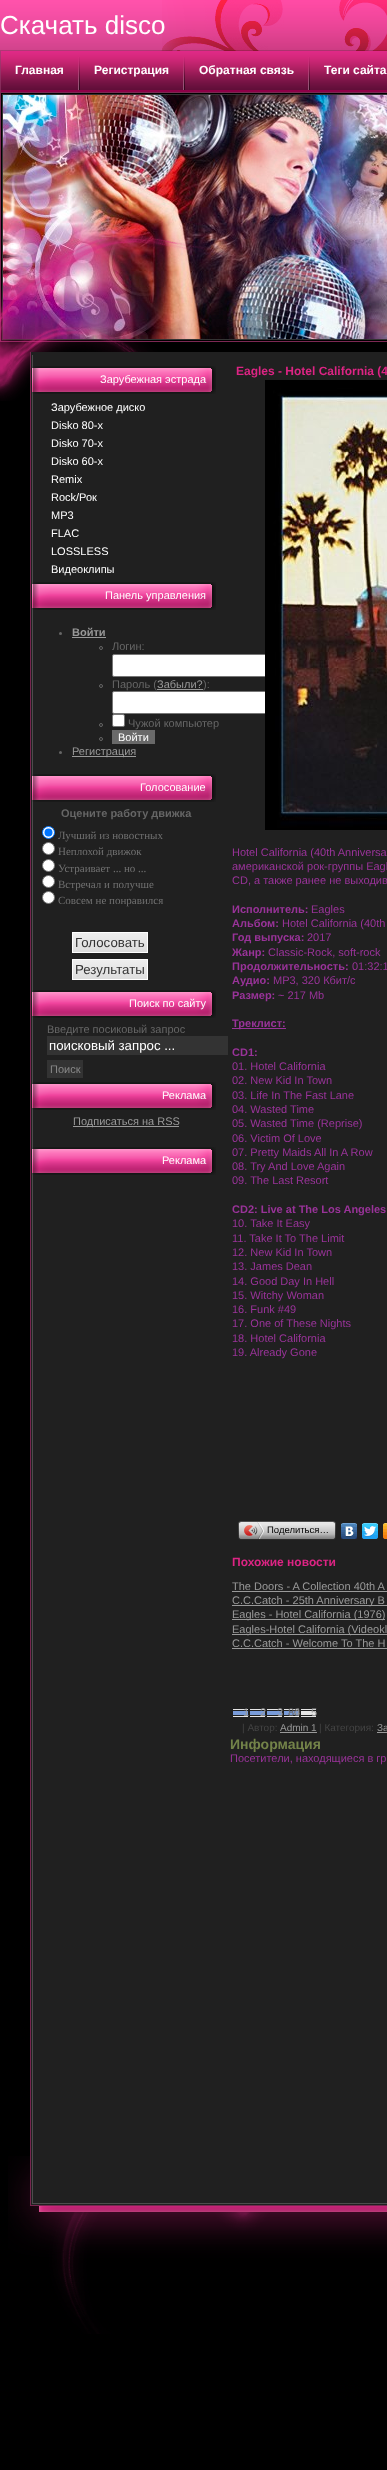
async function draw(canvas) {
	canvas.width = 387;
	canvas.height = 2470;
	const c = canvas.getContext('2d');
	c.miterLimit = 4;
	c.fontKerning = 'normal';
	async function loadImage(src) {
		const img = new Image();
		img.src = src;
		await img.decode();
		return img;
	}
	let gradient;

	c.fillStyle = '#000';
	c.fillRect(0, 0, 387, 2470);
	c.drawImage(await loadImage('img1.png'), 0, 0, 162, 50);
	c.drawImage(await loadImage('img2.png'), 162, 0, 225, 50);
	c.font = '26px Liberation Sans';
	c.fillStyle = '#fff';
	c.fillText('Скачать disco', 0, 34);
	c.drawImage(await loadImage('img3.png'), 0, 50, 387, 42);
	c.drawImage(await loadImage('img4.png'), 78, 57, 2, 33);
	c.font = 'bold 12px Liberation Sans';
	c.fillText('Главная', 15, 74);
	c.drawImage(await loadImage('img4.png'), 183, 57, 2, 33);
	c.fillText('Регистрация', 94, 74);
	c.drawImage(await loadImage('img4.png'), 308, 57, 2, 33);
	c.fillText('Обратная связь', 199, 74);
	c.fillText('Теги сайта', 324, 74);
	c.strokeStyle = '#7c2853';
	c.strokeRect(0.5, 92.5, 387, 249);
	c.fillStyle = '#333';
	c.fillRect(2, 94, 385, 246);
	c.drawImage(await loadImage('img5.png'), 3, 95, 384, 244);
	c.drawImage(await loadImage('img6.png'), 0, 223, 212, 178);
	c.drawImage(await loadImage('img7.png'), 30, 352, 357, 1804);
	c.fillStyle = '#202020';
	c.fillRect(31, 352, 2, 3);
	c.drawImage(await loadImage('img8.png'), 32, 366, 184, 28);
	c.font = '11px Liberation Sans';
	c.fillStyle = '#fff';
	for (const [text, x, y] of [
		['Зарубежная эстрада', 100, 383],
		['Зарубежное диско', 51, 411],
		['Disko 80-х', 51, 429],
		['Disko 70-х', 51, 447],
		['Disko 60-х', 51, 465],
		['Remix', 51, 483],
		['Rock/Рок', 51, 501],
		['MP3', 51, 519],
		['FLAC', 51, 537],
		['LOSSLESS', 51, 555],
		['Видеоклипы', 51, 573],
	]) {
		c.fillText(text, x, y);
	}
	c.drawImage(await loadImage('img8.png'), 32, 582, 184, 28);
	c.fillText('Панель управления', 105, 599);
	c.fillStyle = '#666';
	c.beginPath();
	c.arc(60.5, 633.5, 1.5, 0, 2 * Math.PI);
	c.fill();
	c.font = 'bold 11px Liberation Sans';
	c.fillStyle = '#999';
	c.fillText('Войти', 72, 636);
	c.fillRect(72, 637, 34, 1);
	c.beginPath();
	c.arc(101, 648, 1.5, 0, 2 * Math.PI);
	c.strokeStyle = '#666';
	c.stroke();
	c.font = '11px Liberation Sans';
	c.fillStyle = '#666';
	c.fillText('Логин:', 112, 650);
	c.fillStyle = '#fff';
	c.beginPath();
	c.roundRect(112.5, 654.5, 184, 22, 1.5);
	c.fill();
	c.strokeStyle = '#767676';
	c.stroke();
	c.beginPath();
	c.arc(101, 686, 1.5, 0, 2 * Math.PI);
	c.strokeStyle = '#666';
	c.stroke();
	c.fillStyle = '#666';
	c.fillText('Пароль (', 112, 688);
	c.fillStyle = '#999';
	c.fillRect(157, 689, 46, 1);
	c.fillText('Забыли?', 157, 688);
	c.fillStyle = '#666';
	c.fillText('):', 203, 688);
	c.fillStyle = '#fff';
	c.beginPath();
	c.roundRect(112.5, 691.5, 184, 22, 1.5);
	c.fill();
	c.strokeStyle = '#767676';
	c.stroke();
	c.beginPath();
	c.arc(101, 725, 1.5, 0, 2 * Math.PI);
	c.strokeStyle = '#666';
	c.stroke();
	c.beginPath();
	c.roundRect(112.5, 714.5, 12, 12, 1.5);
	c.fill();
	c.strokeStyle = '#767676';
	c.stroke();
	c.fillStyle = '#666';
	c.fillText('Чужой компьютер', 128, 727);
	c.beginPath();
	c.arc(101, 739, 1.5, 0, 2 * Math.PI);
	c.strokeStyle = '#666';
	c.stroke();
	c.fillStyle = '#696969';
	c.fillRect(112, 730, 43, 14);
	c.fillStyle = '#fff';
	c.fillText('Войти', 118, 741);
	c.fillStyle = '#666';
	c.beginPath();
	c.arc(60.5, 752.5, 1.5, 0, 2 * Math.PI);
	c.fill();
	c.fillStyle = '#999';
	c.fillRect(72, 756, 64, 1);
	c.fillText('Регистрация', 72, 755);
	c.drawImage(await loadImage('img8.png'), 32, 774, 184, 28);
	c.fillStyle = '#fff';
	c.fillText('Голосование', 140, 791);
	c.font = 'bold 11px Liberation Sans';
	c.fillStyle = '#666';
	c.fillText('Оцените работу движка', 61, 817);
	c.fillStyle = '#fff';
	c.beginPath();
	c.arc(48.5, 832.5, 6, 0, 2 * Math.PI);
	c.fill();
	c.strokeStyle = '#0075ff';
	c.stroke();
	c.fillStyle = '#0075ff';
	c.beginPath();
	c.arc(48.5, 832.5, 4, 0, 2 * Math.PI);
	c.fill();
	c.font = '11px Liberation Serif';
	c.fillStyle = '#717171';
	c.fillText('Лучший из новостных', 58, 839);
	c.fillStyle = '#fff';
	c.beginPath();
	c.arc(48.5, 848.5, 6, 0, 2 * Math.PI);
	c.fill();
	c.strokeStyle = '#767676';
	c.stroke();
	c.fillStyle = '#717171';
	c.fillText('Неплохой движок', 58, 855);
	c.fillStyle = '#fff';
	c.beginPath();
	c.arc(48.5, 865.5, 6, 0, 2 * Math.PI);
	c.fill();
	c.stroke();
	c.fillStyle = '#717171';
	c.fillText('Устраивает ... но ...', 58, 872);
	c.fillStyle = '#fff';
	c.beginPath();
	c.arc(48.5, 881.5, 6, 0, 2 * Math.PI);
	c.fill();
	c.stroke();
	c.fillStyle = '#717171';
	c.fillText('Встречал и получше', 58, 888);
	c.fillStyle = '#fff';
	c.beginPath();
	c.arc(48.5, 897.5, 6, 0, 2 * Math.PI);
	c.fill();
	c.stroke();
	c.fillStyle = '#717171';
	c.fillText('Совсем не понравился', 58, 904);
	gradient = c.createLinearGradient(73, 933, 73, 952);
	gradient.addColorStop(0, '#eee');
	gradient.addColorStop(1, '#ddd');
	c.fillStyle = gradient;
	c.fillRect(73, 933, 74, 19);
	c.strokeStyle = '#fff';
	c.strokeRect(72.5, 932.5, 75, 20);
	c.font = '13.25px Liberation Sans';
	c.fillStyle = '#333';
	c.fillText('Голосовать', 75, 947);
	gradient = c.createLinearGradient(73, 960, 73, 979);
	gradient.addColorStop(0, '#eee');
	gradient.addColorStop(1, '#ddd');
	c.fillStyle = gradient;
	c.fillRect(73, 960, 74, 19);
	c.strokeRect(72.5, 959.5, 75, 20);
	c.fillStyle = '#333';
	c.fillText('Результаты', 75, 974);
	c.drawImage(await loadImage('img8.png'), 32, 990, 184, 28);
	c.font = '11px Liberation Sans';
	c.fillStyle = '#fff';
	c.fillText('Поиск по сайту', 129, 1007);
	c.fillStyle = '#666';
	c.fillText('Введите посиковый запрос', 47, 1033);
	c.fillStyle = '#333';
	c.fillRect(47, 1036, 181, 19);
	c.font = '13.25px Liberation Sans';
	c.fillStyle = '#fff';
	c.fillText('поисковый запрос ...', 49, 1050);
	c.fillStyle = '#333';
	c.fillRect(47, 1060, 36, 18);
	c.font = '11px Liberation Sans';
	c.fillStyle = '#888';
	c.fillText('Поиск', 50, 1073);
	c.drawImage(await loadImage('img8.png'), 32, 1082, 184, 28);
	c.fillStyle = '#fff';
	c.fillText('Реклама', 162, 1099);
	c.fillStyle = '#999';
	c.fillRect(73, 1126, 106, 1);
	c.fillText('Подписаться на RSS', 73, 1125);
	c.drawImage(await loadImage('img8.png'), 32, 1147, 184, 28);
	c.fillStyle = '#fff';
	c.fillText('Реклама', 162, 1164);
	c.font = 'bold 12px Liberation Sans';
	c.fillStyle = '#dd2484';
	c.fillText('Eagles - Hotel California (4', 236, 375);
	c.drawImage(await loadImage('img9.png'), 265, 380, 122, 450);
	c.font = '11px Liberation Sans';
	c.fillStyle = '#939';
	for (const [text, x, y] of [
		['Hotel California (40th Anniversa', 232, 856],
		['американской рок-группы Eagl', 232, 870],
		['CD, а также ранее не выходив', 232, 884],
	]) {
		c.fillText(text, x, y);
	}
	c.font = 'bold 11px Liberation Sans';
	c.fillText('Исполнитель:', 232, 913);
	c.font = '11px Liberation Sans';
	c.fillText('Eagles', 311, 913);
	c.font = 'bold 11px Liberation Sans';
	c.fillText('Альбом:', 232, 927);
	c.font = '11px Liberation Sans';
	c.fillText('Hotel California (40th', 282, 927);
	c.font = 'bold 11px Liberation Sans';
	c.fillText('Год выпуска:', 232, 941);
	c.font = '11px Liberation Sans';
	c.fillText('2017', 307, 941);
	c.font = 'bold 11px Liberation Sans';
	c.fillText('Жанр:', 232, 956);
	c.font = '11px Liberation Sans';
	c.fillText('Classic-Rock, soft-rock', 268, 956);
	c.font = 'bold 11px Liberation Sans';
	c.fillText('Продолжительность:', 232, 970);
	c.font = '11px Liberation Sans';
	c.fillText('01:32:1', 352, 970);
	c.font = 'bold 11px Liberation Sans';
	c.fillText('Аудио:', 232, 984);
	c.font = '11px Liberation Sans';
	c.fillText('MP3, 320 Кбит/с', 273, 984);
	c.font = 'bold 11px Liberation Sans';
	c.fillText('Размер:', 232, 999);
	c.font = '11px Liberation Sans';
	c.fillText('~ 217 Mb', 278, 999);
	c.fillRect(232, 1028, 54, 1);
	c.font = 'bold 11px Liberation Sans';
	c.fillText('Треклист:', 232, 1027);
	c.fillText('CD1:', 232, 1056);
	c.font = '11px Liberation Sans';
	for (const [text, x, y] of [
		['01. Hotel California', 232, 1070],
		['02. New Kid In Town', 232, 1084],
		['03. Life In The Fast Lane', 232, 1099],
		['04. Wasted Time', 232, 1113],
		['05. Wasted Time (Reprise)', 232, 1127],
		['06. Victim Of Love', 232, 1142],
		['07. Pretty Maids All In A Row', 232, 1156],
		['08. Try And Love Again', 232, 1170],
		['09. The Last Resort', 232, 1184],
	]) {
		c.fillText(text, x, y);
	}
	c.font = 'bold 11px Liberation Sans';
	c.fillText('CD2: Live at The Los Angeles', 232, 1213);
	c.font = '11px Liberation Sans';
	for (const [text, x, y] of [
		['10. Take It Easy', 232, 1227],
		['11. Take It To The Limit', 232, 1242],
		['12. New Kid In Town', 232, 1256],
		['13. James Dean', 232, 1270],
		['14. Good Day In Hell', 232, 1285],
		['15. Witchy Woman', 232, 1299],
		['16. Funk #49', 232, 1313],
		['17. One of These Nights', 232, 1327],
		['18. Hotel California', 232, 1342],
		['19. Already Gone', 232, 1356],
	]) {
		c.fillText(text, x, y);
	}
	c.drawImage(await loadImage('img10.png'), 241, 1521, 92, 19);
	c.drawImage(await loadImage('img11.png'), 238, 1521, 3, 19);
	c.drawImage(await loadImage('img12.png'), 244, 1522, 20, 17);
	c.font = '9.5px Liberation Sans';
	c.fillStyle = '#000';
	c.fillText('Поделиться…', 267, 1533);
	c.drawImage(await loadImage('img13.png'), 333, 1521, 3, 19);
	c.drawImage(await loadImage('img14.png'), 341, 1523, 16, 16);
	c.drawImage(await loadImage('img15.png'), 362, 1523, 16, 16);
	c.drawImage(await loadImage('img16.png'), 383, 1523, 4, 16);
	c.font = 'bold 12px Liberation Sans';
	c.fillStyle = '#dd2484';
	c.fillText('Похожие новости', 232, 1566);
	c.font = '11px Liberation Sans';
	c.fillStyle = '#999';
	c.fillText('The Doors - A Collection 40th A', 232, 1590);
	c.fillRect(232, 1591, 155, 1);
	c.fillRect(232, 1605, 155, 1);
	c.fillText('C.C.Catch - 25th Anniversary B', 232, 1604);
	c.fillRect(232, 1619, 153, 1);
	c.fillText('Eagles - Hotel California (1976)', 232, 1618);
	c.fillRect(232, 1634, 155, 1);
	c.fillText('Eagles-Hotel California (Videokl', 232, 1633);
	c.fillText('C.C.Catch - Welcome To The H', 232, 1647);
	c.fillRect(232, 1648, 155, 1);
	c.drawImage(await loadImage('img17.png'), 233, 1709, 83, 8);
	c.drawImage(await loadImage('img18.png'), 233, 1711, 66, 4);
	for (const [text, x, y] of [
		['1', 243, 1716],
		['2', 260, 1716],
		['3', 277, 1716],
	]) {
		c.fillText(text, x, y);
	}
	c.fillStyle = '#666';
	c.fillText('80', 288, 1716);
	c.fillStyle = '#999';
	c.fillText('4', 294, 1716);
	c.fillText('5', 311, 1716);
	c.font = '10px Liberation Sans';
	c.fillStyle = '#444';
	c.fillText('| Автор:', 242, 1731);
	c.fillStyle = '#999';
	c.fillText('Admin 1', 280, 1731);
	c.fillRect(280, 1732, 37, 1);
	c.fillStyle = '#444';
	c.fillText('| Категория:', 319, 1731);
	c.fillStyle = '#999';
	c.fillText('За', 377, 1731);
	c.fillRect(377, 1732, 10, 1);
	c.font = 'bold 14px Liberation Sans';
	c.fillStyle = '#738349';
	c.fillText('Информация', 230, 1749);
	c.font = '11px Liberation Sans';
	c.fillStyle = '#939';
	c.fillText('Посетители, находящиеся в гр', 230, 1762);
	c.drawImage(await loadImage('img19.png'), 8, 2156, 379, 178);
}

draw(document.querySelector('canvas'));
